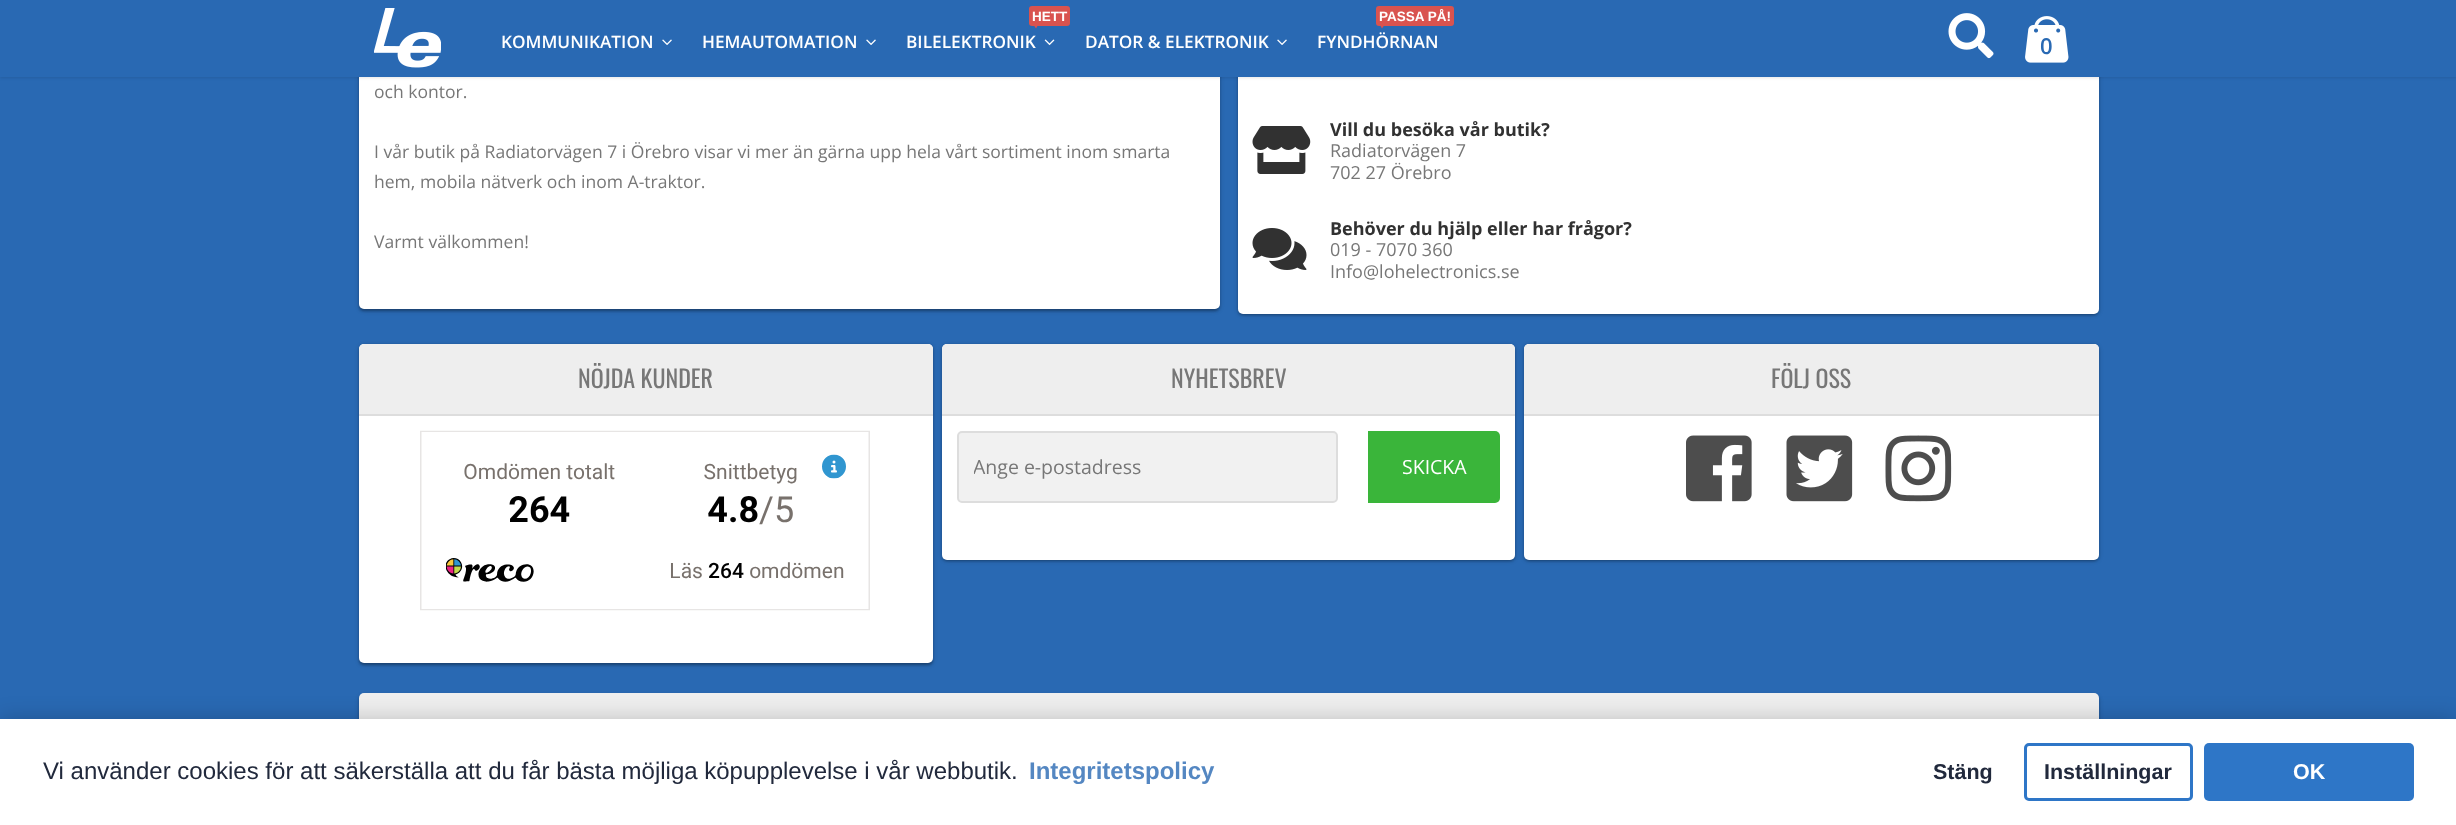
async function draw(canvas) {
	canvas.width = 2456;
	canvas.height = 825;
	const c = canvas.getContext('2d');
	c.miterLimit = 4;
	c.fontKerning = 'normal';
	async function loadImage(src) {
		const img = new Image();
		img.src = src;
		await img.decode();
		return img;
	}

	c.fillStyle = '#2969b3';
	c.fillRect(0, 0, 2456, 825);
	c.fillStyle = '#0000001f';
	c.filter = 'blur(1px)';
	c.beginPath();
	c.roundRect(360, -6, 858, 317, 3);
	c.fill();
	c.filter = 'none';
	c.filter = 'blur(1px)';
	c.beginPath();
	c.roundRect(359, -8, 861, 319, 5);
	c.fill();
	c.filter = 'none';
	c.fillStyle = '#00000033';
	c.filter = 'blur(2px)';
	c.beginPath();
	c.roundRect(359, -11, 861, 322, 5);
	c.fill();
	c.filter = 'none';
	c.fillStyle = '#fff';
	c.beginPath();
	c.roundRect(359, -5, 861, 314, 5);
	c.fill();
	c.fillStyle = '#0000001f';
	c.filter = 'blur(1px)';
	c.beginPath();
	c.roundRect(1239, -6, 858, 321, 3);
	c.fill();
	c.filter = 'none';
	c.filter = 'blur(1px)';
	c.beginPath();
	c.roundRect(1238, -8, 861, 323, 5);
	c.fill();
	c.filter = 'none';
	c.fillStyle = '#00000033';
	c.filter = 'blur(2px)';
	c.beginPath();
	c.roundRect(1238, -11, 861, 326, 5);
	c.fill();
	c.filter = 'none';
	c.fillStyle = '#fff';
	c.beginPath();
	c.roundRect(1238, -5, 861, 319, 5);
	c.fill();
	c.fillStyle = '#0000001a';
	c.filter = 'blur(1.5px)';
	c.beginPath();
	c.rect(0, 2, 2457, 76);
	c.fill();
	c.filter = 'none';
	c.fillStyle = '#2969b3';
	c.fillRect(0, 0, 2456, 77);
	c.drawImage(await loadImage('img1.png'), 374, 8, 67, 60);
	c.font = '600 17.25px Open Sans';
	c.fillStyle = '#fff';
	c.fillText('KOMMUNIKATION', 501, 48);
	c.drawImage(await loadImage('img2.png'), 662, 39, 10, 6);
	c.fillText('HEMAUTOMATION', 702, 48);
	c.drawImage(await loadImage('img2.png'), 866, 39, 10, 6);
	c.fillStyle = '#d9534f';
	c.beginPath();
	c.roundRect(1029, 6, 41, 20, 3);
	c.fill();
	c.font = 'bold 13.5px Liberation Sans';
	c.fillStyle = '#fff';
	c.fillText('HETT', 1032, 21);
	c.fillStyle = '#d9534f';
	c.beginPath();
	c.moveTo(1032, 22.5);
	c.lineTo(1039.5, 22.5);
	c.lineTo(1036, 28.5);
	c.closePath();
	c.fill();
	c.font = '600 17.25px Open Sans';
	c.fillStyle = '#fff';
	c.fillText('BILELEKTRONIK', 906, 48);
	c.drawImage(await loadImage('img3.png'), 1044, 39, 11, 7);
	c.fillText('DATOR & ELEKTRONIK', 1085, 48);
	c.drawImage(await loadImage('img2.png'), 1277, 39, 10, 6);
	c.fillStyle = '#d9534f';
	c.beginPath();
	c.roundRect(1376, 6, 78, 20, 3);
	c.fill();
	c.font = 'bold 13.5px Liberation Sans';
	c.fillStyle = '#fff';
	c.fillText('PASSA PÅ!', 1379, 21);
	c.fillStyle = '#d9534f';
	c.beginPath();
	c.moveTo(1378.5, 22.5);
	c.lineTo(1386, 22.5);
	c.lineTo(1382, 28.5);
	c.closePath();
	c.fill();
	c.font = '600 17.25px Open Sans';
	c.fillStyle = '#fff';
	c.fillText('FYNDHÖRNAN', 1317, 48);
	c.drawImage(await loadImage('img4.png'), 1948, 13, 46, 46);
	c.drawImage(await loadImage('img5.png'), 2025, 16, 44, 47);
	c.font = '600 22px Open Sans';
	c.fillStyle = '#2969b3';
	c.fillText('0', 2040, 54);
	c.font = '17.55px Open Sans';
	c.fillStyle = '#777';
	for (const [text, x, y] of [
		['och kontor.', 374, 98],
		['I vår butik på Radiatorvägen 7 i Örebro visar vi mer än gärna upp hela vårt sortiment inom smarta', 374, 158],
		['hem, mobila nätverk och inom A-traktor.', 374, 188],
		['Varmt välkommen!', 374, 248],
	]) {
		c.fillText(text, x, y);
	}
	c.drawImage(await loadImage('img6.png'), 1252, 126, 59, 48);
	c.font = 'bold 18px Open Sans';
	c.fillStyle = '#313131';
	c.fillText('Vill du besöka vår butik?', 1330, 136);
	c.font = '18px Open Sans';
	c.fillStyle = '#777';
	c.fillText('Radiatorvägen 7', 1330, 157);
	c.fillText('702 27 Örebro', 1330, 179);
	c.drawImage(await loadImage('img7.png'), 1252, 228, 55, 42);
	c.font = 'bold 18px Open Sans';
	c.fillStyle = '#313131';
	c.fillText('Behöver du hjälp eller har frågor?', 1330, 235);
	c.font = '18px Open Sans';
	c.fillStyle = '#777';
	c.fillText('019 - 7070 360', 1330, 256);
	c.fillText('Info@lohelectronics.se', 1330, 278);
	c.fillStyle = '#0000001f';
	c.filter = 'blur(1px)';
	c.beginPath();
	c.roundRect(360, 348, 572, 317, 3);
	c.fill();
	c.filter = 'none';
	c.filter = 'blur(1px)';
	c.beginPath();
	c.roundRect(359, 345, 574, 320, 5);
	c.fill();
	c.filter = 'none';
	c.fillStyle = '#00000033';
	c.filter = 'blur(2px)';
	c.beginPath();
	c.roundRect(359, 345, 574, 320, 5);
	c.fill();
	c.filter = 'none';
	c.fillStyle = '#fff';
	c.beginPath();
	c.roundRect(359, 344, 574, 319, 5);
	c.fill();
	c.fillStyle = '#eee';
	c.beginPath();
	c.roundRect(359, 344, 574, 72, [5, 5, 0, 0]);
	c.fill();
	c.fillStyle = '#ddd';
	c.fillRect(359, 414, 574, 2);
	c.font = '24px Oswald';
	c.fillStyle = '#777';
	c.fillText('NÖJDA KUNDER', 578, 388);
	c.drawImage(await loadImage('img8.png'), 420, 430, 450, 181);
	c.fillStyle = '#0000001f';
	c.filter = 'blur(1px)';
	c.beginPath();
	c.roundRect(944, 348, 570, 213, 3);
	c.fill();
	c.filter = 'none';
	c.filter = 'blur(1px)';
	c.beginPath();
	c.roundRect(942, 345, 573, 216, 5);
	c.fill();
	c.filter = 'none';
	c.fillStyle = '#00000033';
	c.filter = 'blur(2px)';
	c.beginPath();
	c.roundRect(942, 345, 573, 216, 5);
	c.fill();
	c.filter = 'none';
	c.fillStyle = '#fff';
	c.beginPath();
	c.roundRect(942, 344, 573, 216, 5);
	c.fill();
	c.fillStyle = '#eee';
	c.beginPath();
	c.roundRect(942, 344, 573, 72, [5, 5, 0, 0]);
	c.fill();
	c.fillStyle = '#ddd';
	c.fillRect(942, 414, 573, 2);
	c.fillStyle = '#777';
	c.fillText('NYHETSBREV', 1171, 388);
	c.fillStyle = '#f1f1f1';
	c.beginPath();
	c.roundRect(958, 432, 379, 70, 4);
	c.fill();
	c.strokeStyle = '#ddd';
	c.lineWidth = 2;
	c.stroke();
	c.save();
	c.beginPath();
	c.rect(974, 453, 348, 27);
	c.clip();
	c.font = '19.5px Open Sans';
	c.fillStyle = '#777';
	c.fillText('Ange e-postadress', 973, 474);
	c.restore();
	c.fillStyle = '#3ab53a';
	c.beginPath();
	c.roundRect(1368, 431, 132, 72, [0, 5, 5, 0]);
	c.fill();
	c.font = '19.5px Open Sans';
	c.fillStyle = '#fff';
	c.fillText('SKICKA', 1402, 474);
	c.fillStyle = '#0000001f';
	c.filter = 'blur(1px)';
	c.beginPath();
	c.roundRect(1526, 348, 571, 213, 3);
	c.fill();
	c.filter = 'none';
	c.filter = 'blur(1px)';
	c.beginPath();
	c.roundRect(1524, 345, 575, 216, 5);
	c.fill();
	c.filter = 'none';
	c.fillStyle = '#00000033';
	c.filter = 'blur(2px)';
	c.beginPath();
	c.roundRect(1524, 345, 575, 216, 5);
	c.fill();
	c.filter = 'none';
	c.fillStyle = '#fff';
	c.beginPath();
	c.roundRect(1524, 344, 575, 216, 5);
	c.fill();
	c.fillStyle = '#eee';
	c.beginPath();
	c.roundRect(1524, 344, 575, 72, [5, 5, 0, 0]);
	c.fill();
	c.fillStyle = '#ddd';
	c.fillRect(1524, 414, 575, 2);
	c.font = '24px Oswald';
	c.fillStyle = '#777';
	c.fillText('FÖLJ OSS', 1771, 388);
	c.drawImage(await loadImage('img9.png'), 1686, 435, 66, 67);
	c.drawImage(await loadImage('img10.png'), 1786, 435, 67, 67);
	c.drawImage(await loadImage('img11.png'), 1885, 435, 67, 67);
	c.fillStyle = '#0000001f';
	c.filter = 'blur(1px)';
	c.beginPath();
	c.roundRect(359, 695, 1740, 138, 5);
	c.fill();
	c.filter = 'none';
	c.fillStyle = '#00000033';
	c.filter = 'blur(2px)';
	c.beginPath();
	c.roundRect(359, 695, 1740, 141, 5);
	c.fill();
	c.filter = 'none';
	c.fillStyle = '#eee';
	c.beginPath();
	c.roundRect(359, 693, 1740, 72, [5, 5, 0, 0]);
	c.fill();
	c.fillStyle = '#00000033';
	c.filter = 'blur(11px)';
	c.beginPath();
	c.rect(0, 719, 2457, 106);
	c.fill();
	c.filter = 'none';
	c.fillStyle = '#fff';
	c.fillRect(0, 719, 2456, 106);
	c.font = '24px Liberation Sans';
	c.fillStyle = '#21293c';
	c.fillText('Vi använder cookies för att säkerställa att du får bästa möjliga köpupplevelse i vår webbutik.', 43, 779);
	c.font = 'bold 24px Liberation Sans';
	c.fillStyle = '#5487c2';
	c.fillText('Integritetspolicy', 1029, 779);
	c.font = 'bold 21.5px Liberation Sans';
	c.fillStyle = '#21293c';
	c.fillText('Stäng', 1933, 779);
	c.beginPath();
	c.roundRect(2025.5, 744.5, 166, 55, 3.5);
	c.strokeStyle = '#2e76c7';
	c.lineWidth = 3;
	c.stroke();
	c.fillText('Inställningar', 2044, 779);
	c.fillStyle = '#2e76c7';
	c.beginPath();
	c.roundRect(2204, 743, 210, 58, 5);
	c.fill();
	c.fillStyle = '#fff';
	c.fillText('OK', 2293, 779);
}

draw(document.querySelector('canvas'));
